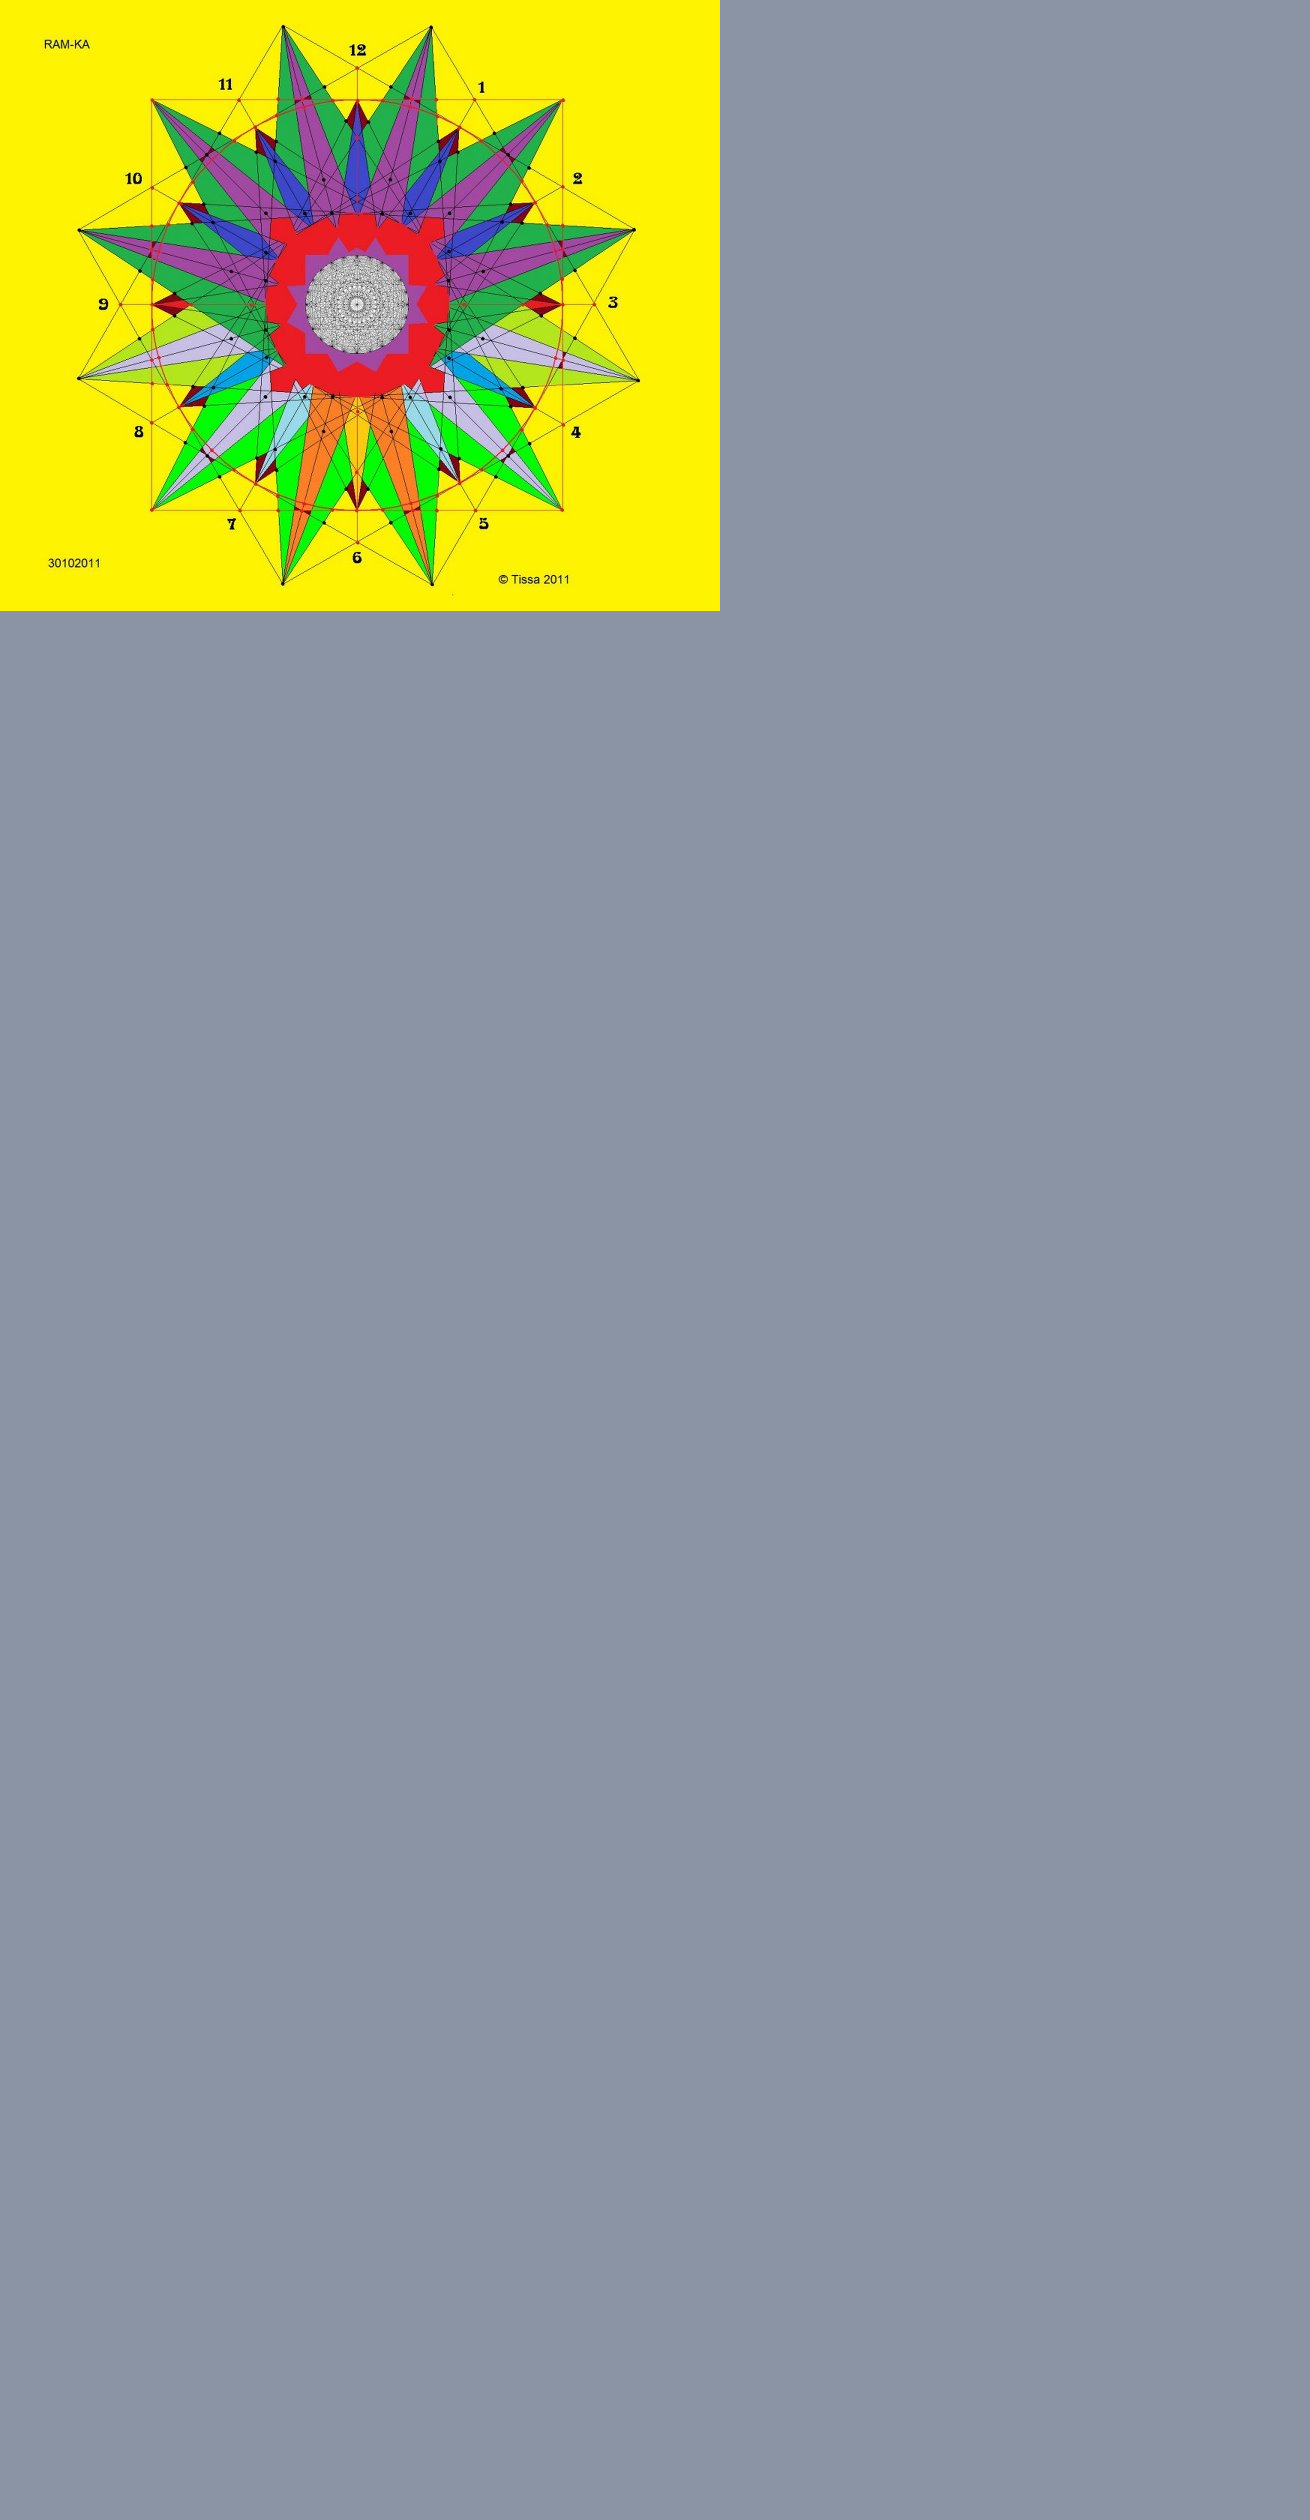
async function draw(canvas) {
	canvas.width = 1310;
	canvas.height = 2520;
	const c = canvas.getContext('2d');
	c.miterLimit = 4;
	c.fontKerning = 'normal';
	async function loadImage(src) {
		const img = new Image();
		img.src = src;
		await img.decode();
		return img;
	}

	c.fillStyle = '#8b94a5';
	c.fillRect(0, 0, 1310, 2520);
	c.drawImage(await loadImage('img1.png'), 0, 0, 720, 611);
}

draw(document.querySelector('canvas'));
